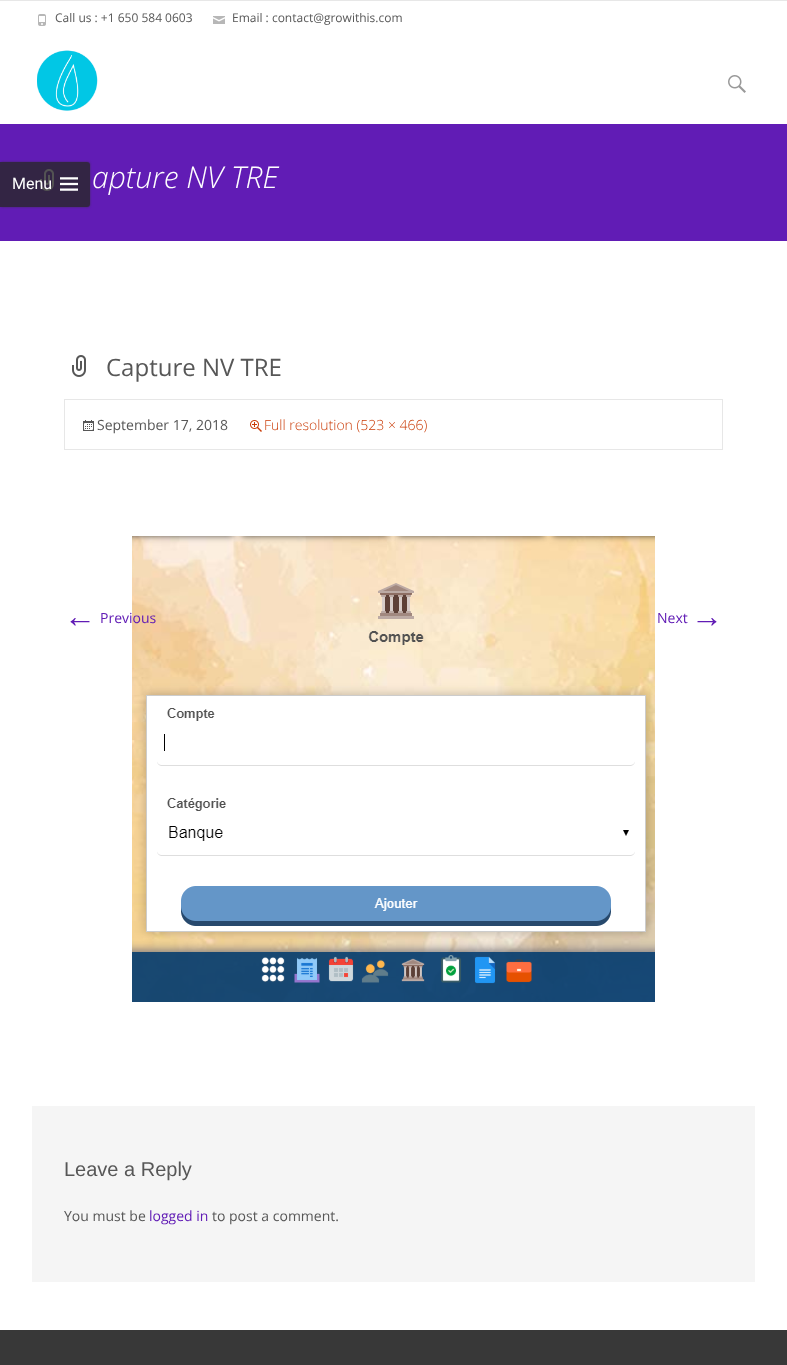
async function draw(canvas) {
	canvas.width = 787;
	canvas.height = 1365;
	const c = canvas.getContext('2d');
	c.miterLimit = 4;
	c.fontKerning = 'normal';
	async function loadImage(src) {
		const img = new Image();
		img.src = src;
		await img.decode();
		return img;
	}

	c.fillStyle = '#fff';
	c.fillRect(0, 0, 787, 1365);
	c.fillStyle = '#e7e7e7';
	c.fillRect(0, 0, 787, 1);
	c.drawImage(await loadImage('img1.png'), 38, 14, 8, 12);
	c.font = '12px Open Sans';
	c.fillStyle = '#575757';
	c.fillText('Call us : +1 650 584 0603', 55, 22);
	c.drawImage(await loadImage('img2.png'), 213, 16, 12, 8);
	c.fillText('Email : contact@growithis.com', 232, 22);
	c.drawImage(await loadImage('img3.png'), 37, 50, 61, 61);
	c.drawImage(await loadImage('img4.png'), 728, 75, 18, 18);
	c.fillStyle = '#611cb5';
	c.fillRect(0, 124, 787, 117);
	c.drawImage(await loadImage('img6.png'), 40, 169, 14, 22);
	c.save();
	c.beginPath();
	c.moveTo(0, 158);
	c.lineTo(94, 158);
	c.lineTo(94, 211);
	c.lineTo(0, 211);
	c.closePath();
	c.moveTo(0, 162);
	c.lineTo(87, 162);
	c.bezierCurveTo(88.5, 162, 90, 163.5, 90, 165);
	c.lineTo(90, 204);
	c.bezierCurveTo(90, 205.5, 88.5, 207, 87, 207);
	c.lineTo(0, 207);
	c.closePath();
	c.clip('evenodd');
	c.fillStyle = '#323232a3';
	c.filter = 'blur(1px)';
	c.beginPath();
	c.roundRect(0, 162, 90, 45, 3);
	c.fill();
	c.filter = 'none';
	c.restore();
	c.fillStyle = '#282828cc';
	c.beginPath();
	c.roundRect(0, 162, 90, 45, [0, 3, 3, 0]);
	c.fill();
	c.font = '16px Roboto';
	c.fillStyle = '#fff';
	c.fillText('Menu', 12, 189);
	c.drawImage(await loadImage('img5.png'), 60, 177, 18, 14);
	c.font = 'italic 300 30px Open Sans';
	c.fillText('apture NV TRE', 92, 188);
	c.drawImage(await loadImage('img7.png'), 72, 355, 14, 22);
	c.font = '24px Open Sans';
	c.fillStyle = '#575757';
	c.fillText('Capture NV TRE', 106, 376);
	c.strokeStyle = '#e7e7e7';
	c.strokeRect(64.5, 399.5, 658, 50);
	c.drawImage(await loadImage('img8.png'), 83, 420, 11, 11);
	c.font = '14px Open Sans';
	c.fillText('September 17, 2018', 97, 430);
	c.drawImage(await loadImage('img9.png'), 250, 420, 12, 12);
	c.font = '300 14px Open Sans';
	c.fillStyle = '#ca3c08';
	c.fillText('Full resolution (523 × 466)', 264, 430);
	c.drawImage(await loadImage('img10.png'), 132, 536, 523, 466);
	c.font = '32px Liberation Sans';
	c.fillStyle = '#611cb5';
	c.fillText('←', 64, 627);
	c.font = '14px Open Sans';
	c.fillText('Previous', 100, 623);
	c.fillText('Next', 657, 623);
	c.font = '32px Liberation Sans';
	c.fillText('→', 691, 627);
	c.fillStyle = '#f5f5f5';
	c.fillRect(32, 1106, 723, 176);
	c.font = '20px Liberation Sans';
	c.fillStyle = '#575757';
	c.fillText('Leave a Reply', 64, 1176);
	c.font = '14px Open Sans';
	c.fillText('You must be', 64, 1221);
	c.fillStyle = '#611cb5';
	c.fillText('logged in', 149, 1221);
	c.fillStyle = '#575757';
	c.fillText('to post a comment.', 212, 1221);
	c.fillStyle = '#383838';
	c.fillRect(0, 1330, 787, 35);
}

draw(document.querySelector('canvas'));
